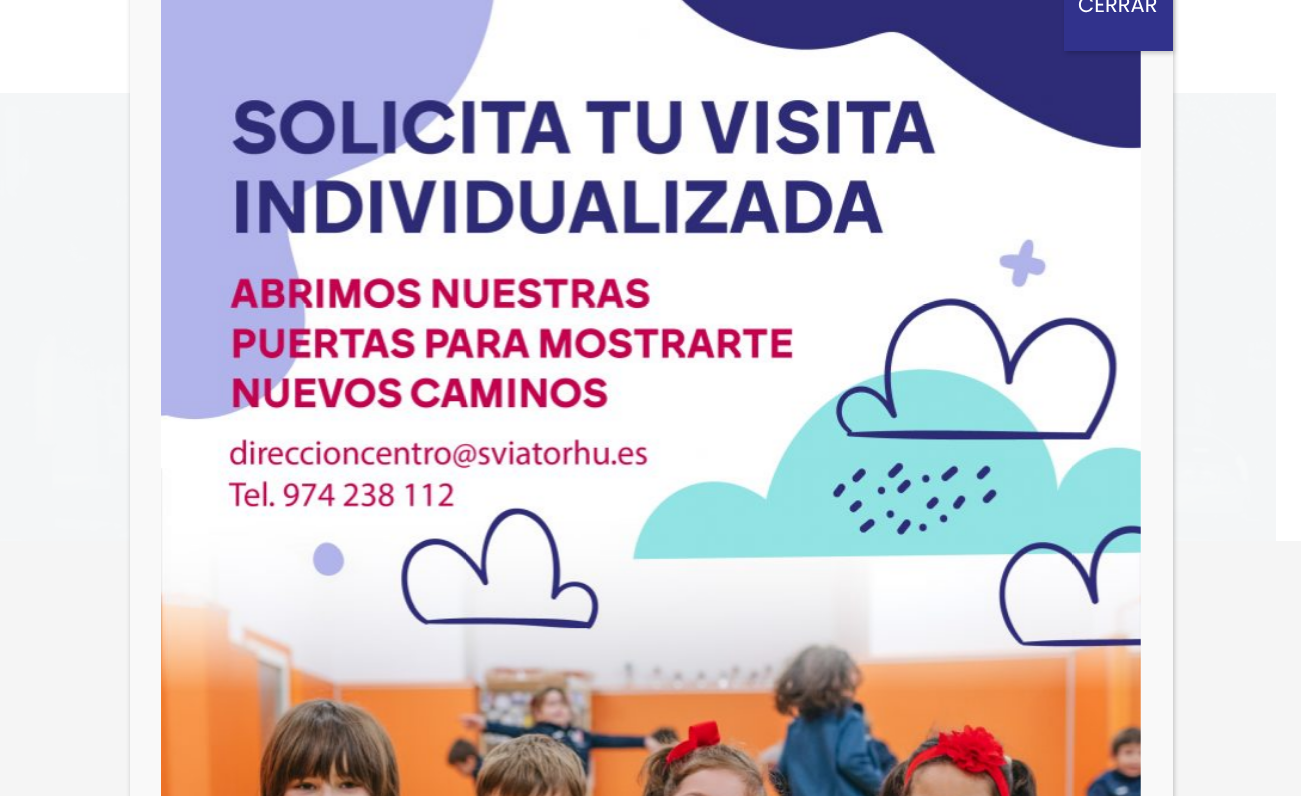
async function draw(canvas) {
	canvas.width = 1301;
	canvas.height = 796;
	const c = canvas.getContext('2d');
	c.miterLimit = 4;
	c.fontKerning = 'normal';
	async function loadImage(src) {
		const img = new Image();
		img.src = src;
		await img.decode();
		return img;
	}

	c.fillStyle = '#fff';
	c.fillRect(0, 0, 1301, 796);
	c.fillStyle = '#f4f7f9';
	c.fillRect(0, 93, 1276, 448);
	c.drawImage(await loadImage('img2.png'), 0, 93, 1276, 448);
	c.fillStyle = '#f5f5f5';
	c.fillRect(0, 541, 1301, 255);
	c.fillStyle = '#0202023b';
	c.filter = 'blur(2.5px)';
	c.beginPath();
	c.rect(131, -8, 1043, 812);
	c.fill();
	c.filter = 'none';
	c.fillStyle = '#f9f9f9';
	c.fillRect(130, 0, 1043, 796);
	c.drawImage(await loadImage('img1.png'), 161, 0, 980, 796);
	c.fillStyle = '#0202023b';
	c.filter = 'blur(2.5px)';
	c.beginPath();
	c.rect(1066, -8, 108, 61);
	c.fill();
	c.filter = 'none';
	c.fillStyle = '#31328c';
	c.fillRect(1064, 0, 109, 51);
	c.font = '21px Poppins';
	c.fillStyle = '#fff';
	c.fillText('CERRAR', 1078, 12);
}

draw(document.querySelector('canvas'));
